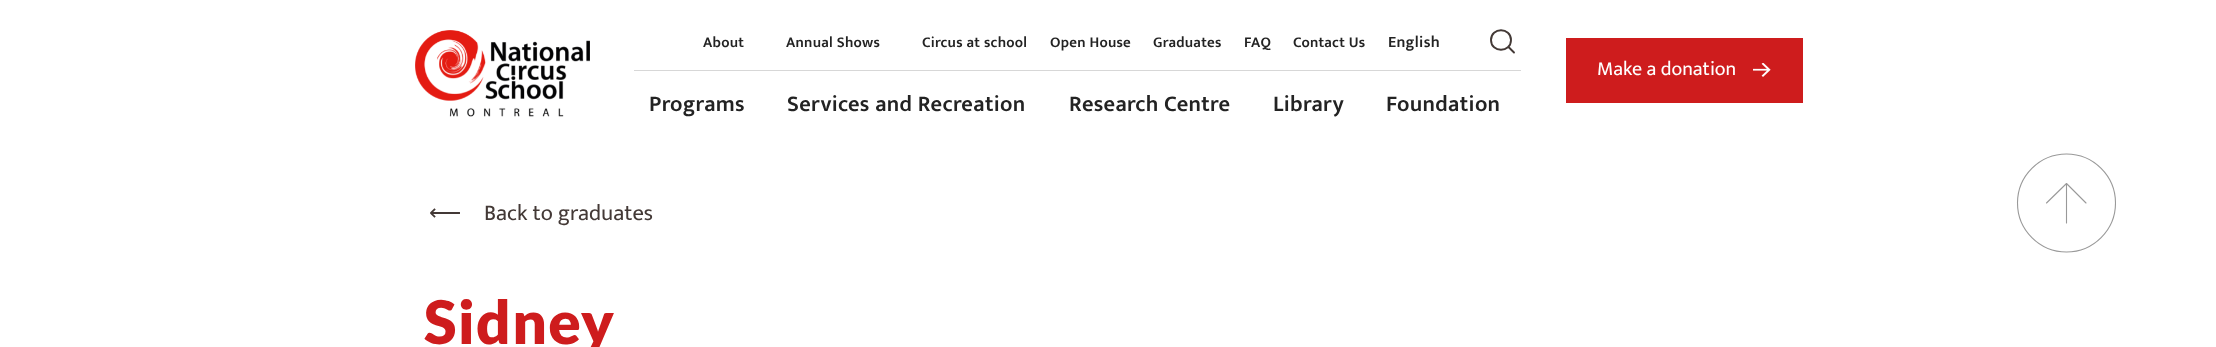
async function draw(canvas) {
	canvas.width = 2216;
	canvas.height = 347;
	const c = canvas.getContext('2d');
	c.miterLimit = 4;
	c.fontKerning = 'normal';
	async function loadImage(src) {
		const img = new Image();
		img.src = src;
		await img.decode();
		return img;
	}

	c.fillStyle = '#fff';
	c.fillRect(0, 0, 2216, 347);
	c.drawImage(await loadImage('img1.png'), 415, 30, 175, 87);
	c.letterSpacing = '0.25px';
	c.font = '600 15px Mukta';
	c.fillStyle = '#232323';
	for (const [text, x, y] of [
		['About', 703, 47],
		['Annual Shows', 786, 47],
		['Circus at school', 922, 47],
		['Open House', 1050, 47],
		['Graduates', 1153, 47],
		['FAQ', 1244, 47],
		['Contact Us', 1293, 47],
	]) {
		c.fillText(text, x, y);
	}
	c.letterSpacing = '0.3px';
	c.font = '600 16px Mukta';
	c.fillText('English', 1388, 47);
	c.beginPath();
	c.moveTo(1514, 52.5);
	c.lineTo(1508.5, 47);
	c.moveTo(1511, 40);
	c.bezierCurveTo(1511, 53, 1491, 53, 1491, 40);
	c.bezierCurveTo(1491, 27, 1511, 27, 1511, 40);
	c.closePath();
	c.strokeStyle = '#433936';
	c.lineWidth = 1.9;
	c.lineCap = 'round';
	c.lineJoin = 'round';
	c.stroke();
	c.fillStyle = '#d7d7d7';
	c.fillRect(634, 70, 887, 1);
	c.font = '600 22.5px Mukta';
	c.fillStyle = '#232323';
	for (const [text, x, y] of [
		['Programs', 649, 111],
		['Services and Recreation', 787, 111],
		['Research Centre', 1069, 111],
		['Library', 1273, 111],
		['Foundation', 1386, 111],
	]) {
		c.fillText(text, x, y);
	}
	c.fillStyle = '#ce1c1d';
	c.fillRect(1566, 38, 237, 65);
	c.letterSpacing = '0px';
	c.font = '20px Mukta';
	c.fillStyle = '#fff';
	c.fillText('Make a donation', 1597, 75);
	c.drawImage(await loadImage('img2.png'), 1753, 63, 18, 14);
	c.font = '22.5px DejaVu Sans';
	c.fillStyle = '#433936';
	c.fillText('⟵', 429, 220);
	c.font = '22.5px Mukta';
	c.fillText('Back to graduates', 484, 220);
	c.letterSpacing = '1.25px';
	c.font = '900 60px Lato';
	c.fillStyle = '#ce1c1d';
	c.fillText('Sidney', 424, 344);
	c.beginPath();
	c.moveTo(2086, 203);
	c.lineTo(2066.5, 183.5);
	c.moveTo(2066.5, 183.5);
	c.lineTo(2046.5, 203);
	c.moveTo(2066.5, 183.5);
	c.lineTo(2066.5, 223);
	c.moveTo(2115.5, 203);
	c.bezierCurveTo(2115.5, 230, 2093.5, 252, 2066.5, 252);
	c.bezierCurveTo(2039.5, 252, 2017.5, 230, 2017.5, 203);
	c.bezierCurveTo(2017.5, 176, 2039.5, 154, 2066.5, 154);
	c.bezierCurveTo(2093.5, 154, 2115.5, 176, 2115.5, 203);
	c.closePath();
	c.strokeStyle = '#999';
	c.lineWidth = 1.1;
	c.stroke();
}

draw(document.querySelector('canvas'));
